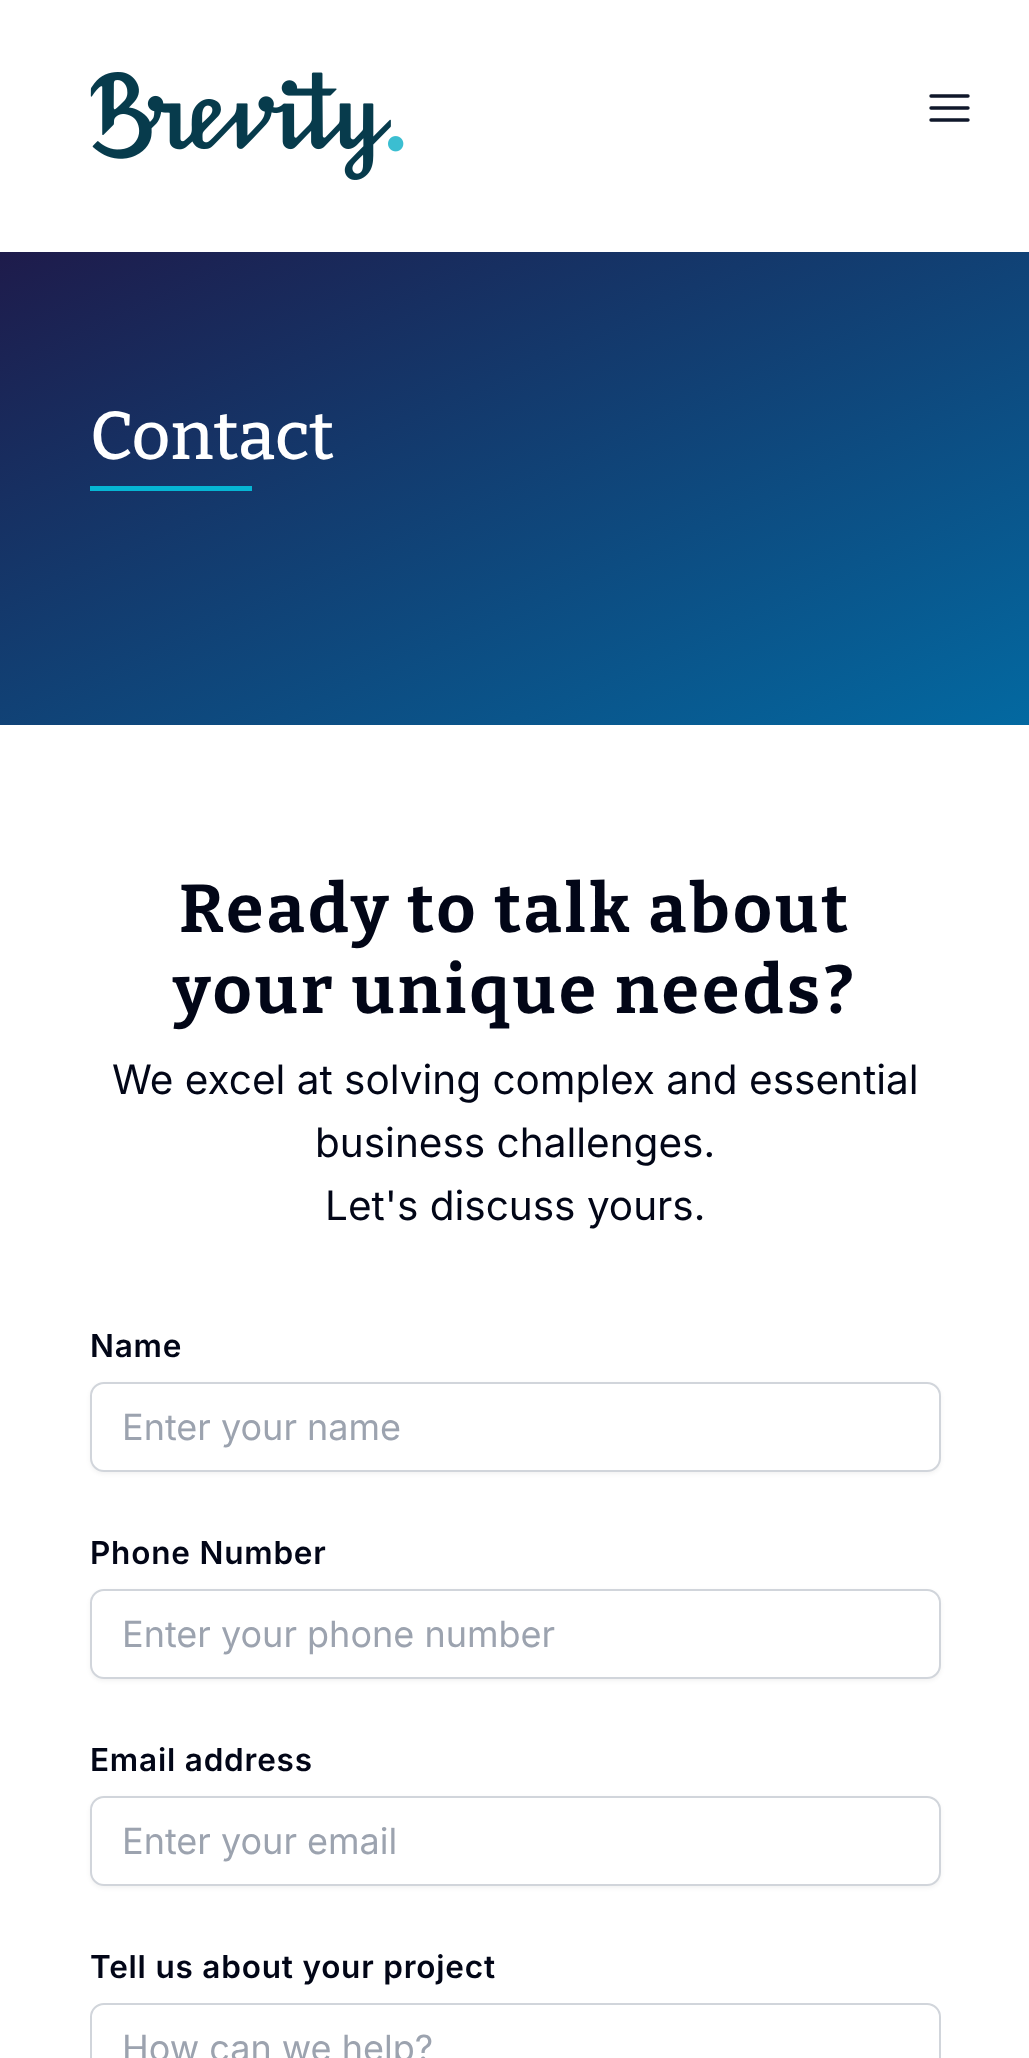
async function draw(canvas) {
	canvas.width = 1029;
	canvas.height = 2058;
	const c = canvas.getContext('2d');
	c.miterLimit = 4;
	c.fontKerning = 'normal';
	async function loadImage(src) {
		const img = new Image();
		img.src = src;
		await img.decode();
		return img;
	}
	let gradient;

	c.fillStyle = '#fff';
	c.fillRect(0, 0, 1029, 2058);
	c.drawImage(await loadImage('img1.png'), 90, 72, 314, 108);
	c.beginPath();
	c.moveTo(931, 96);
	c.lineTo(968, 96);
	c.moveTo(931, 108);
	c.lineTo(968, 108);
	c.moveTo(931, 120);
	c.lineTo(968, 120);
	c.strokeStyle = '#0f172a';
	c.lineWidth = 3.4;
	c.lineCap = 'round';
	c.lineJoin = 'round';
	c.stroke();
	gradient = c.createLinearGradient(336, 98, 694, 879);
	gradient.addColorStop(0, '#1e1b4b');
	gradient.addColorStop(1, '#0369a1');
	c.fillStyle = gradient;
	c.fillRect(0, 252, 1029, 473);
	c.fillStyle = '#06b6d4';
	c.fillRect(90, 486, 162, 5);
	c.font = '500 67.5px Bitter';
	c.fillStyle = '#fff';
	c.fillText('Contact', 90, 459);
	c.letterSpacing = '3.4px';
	c.font = 'bold 67.5px Bitter';
	c.fillStyle = '#020617';
	c.fillText('Ready to talk about', 179, 932);
	c.fillText('your unique needs?', 173, 1013);
	c.letterSpacing = '0px';
	c.font = '40.5px Inter';
	for (const [text, x, y] of [
		['We excel at solving complex and essential', 112, 1094],
		['business challenges.', 315, 1157],
		['Let\'s discuss yours.', 325, 1220],
	]) {
		c.fillText(text, x, y);
	}
	c.letterSpacing = '0.8px';
	c.font = '600 31.5px Inter';
	c.fillText('Name', 90, 1357);
	c.fillStyle = '#0000000d';
	c.filter = 'blur(2px)';
	c.beginPath();
	c.roundRect(90, 1384, 851, 90, 14);
	c.fill();
	c.filter = 'none';
	c.fillStyle = '#fff';
	c.beginPath();
	c.roundRect(91, 1383, 849, 88, 13);
	c.fill();
	c.strokeStyle = '#d1d5db';
	c.lineWidth = 2;
	c.lineJoin = 'miter';
	c.stroke();
	c.letterSpacing = '0px';
	c.font = '36px Inter';
	c.fillStyle = '#9ca3af';
	c.fillText('Enter your name', 122, 1440);
	c.letterSpacing = '0.8px';
	c.font = '600 31.5px Inter';
	c.fillStyle = '#020617';
	c.fillText('Phone Number', 90, 1564);
	c.fillStyle = '#0000000d';
	c.filter = 'blur(2px)';
	c.beginPath();
	c.roundRect(90, 1591, 851, 90, 14);
	c.fill();
	c.filter = 'none';
	c.fillStyle = '#fff';
	c.beginPath();
	c.roundRect(91, 1590, 849, 88, 13);
	c.fill();
	c.stroke();
	c.letterSpacing = '0px';
	c.font = '36px Inter';
	c.fillStyle = '#9ca3af';
	c.fillText('Enter your phone number', 122, 1647);
	c.letterSpacing = '0.8px';
	c.font = '600 31.5px Inter';
	c.fillStyle = '#020617';
	c.fillText('Email address', 90, 1771);
	c.fillStyle = '#0000000d';
	c.filter = 'blur(2px)';
	c.beginPath();
	c.roundRect(90, 1798, 851, 90, 14);
	c.fill();
	c.filter = 'none';
	c.fillStyle = '#fff';
	c.beginPath();
	c.roundRect(91, 1797, 849, 88, 13);
	c.fill();
	c.stroke();
	c.letterSpacing = '0px';
	c.font = '36px Inter';
	c.fillStyle = '#9ca3af';
	c.fillText('Enter your email', 122, 1854);
	c.letterSpacing = '0.8px';
	c.font = '600 31.5px Inter';
	c.fillStyle = '#020617';
	c.fillText('Tell us about your project', 90, 1978);
	c.beginPath();
	c.roundRect(91, 2004, 849, 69, 13);
	c.stroke();
	c.letterSpacing = '0px';
	c.font = '36px Inter';
	c.fillStyle = '#9ca3af';
	c.fillText('How can we help?', 122, 2061);
}

draw(document.querySelector('canvas'));
